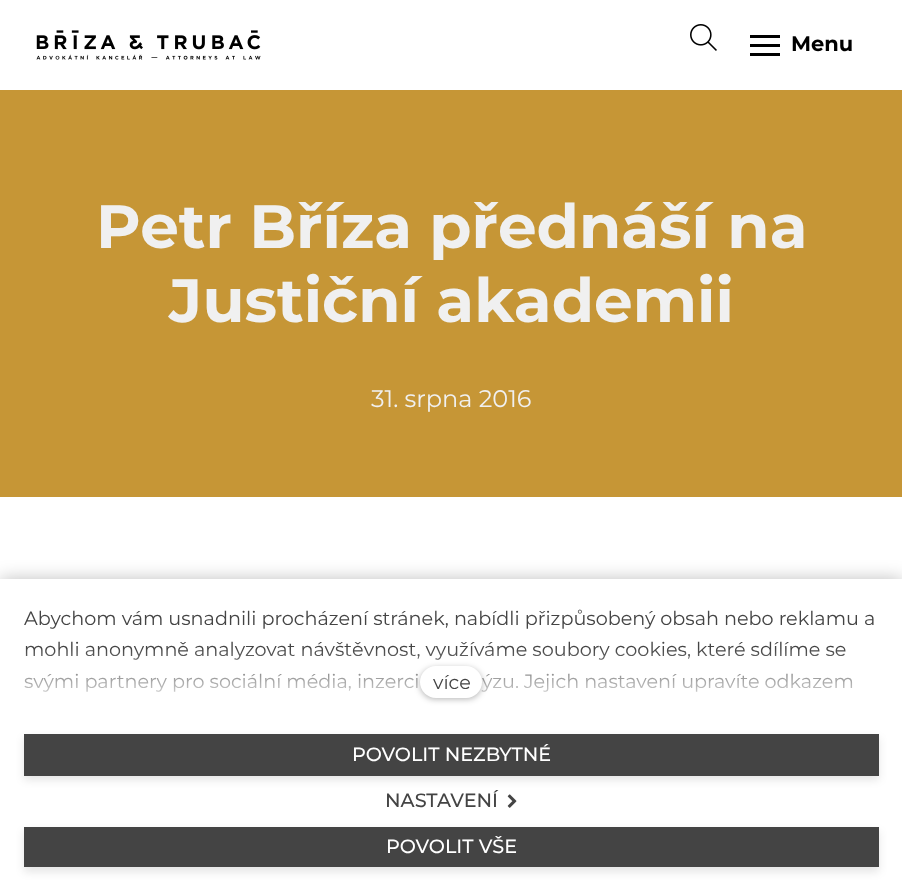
async function draw(canvas) {
	canvas.width = 902;
	canvas.height = 891;
	const c = canvas.getContext('2d');
	c.miterLimit = 4;
	c.fontKerning = 'normal';
	async function loadImage(src) {
		const img = new Image();
		img.src = src;
		await img.decode();
		return img;
	}
	let gradient;

	c.fillStyle = '#fff';
	c.fillRect(0, 0, 902, 891);
	c.drawImage(await loadImage('img1.png'), 36, 30, 225, 30);
	c.drawImage(await loadImage('img2.png'), 690, 24, 27, 27);
	for (const [x, y, w, h, color] of [
		[750, 35, 30, 3, '#000'],
		[750, 44, 30, 3, '#000'],
		[750, 53, 30, 3, '#000'],
	]) {
		c.fillStyle = color;
		c.fillRect(x, y, w, h);
	}
	c.font = 'bold 21px Montserrat';
	c.fillText('Menu', 791, 51);
	c.fillStyle = '#c69636';
	c.fillRect(0, 90, 902, 407);
	c.font = 'bold 61.25px Montserrat';
	c.fillStyle = '#f0f0f0';
	c.fillText('Petr Bříza přednáší na', 96, 248);
	c.fillText('Justiční akademii', 169, 322);
	c.font = '24px Montserrat';
	c.fillText('31. srpna 2016', 371, 407);
	c.fillStyle = '#00000040';
	c.filter = 'blur(9px)';
	c.beginPath();
	c.rect(0, 579, 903, 312);
	c.fill();
	c.filter = 'none';
	c.fillStyle = '#fff';
	c.fillRect(0, 579, 902, 312);
	c.font = '19.2px Montserrat';
	c.fillStyle = '#444';
	for (const [text, x, y] of [
		['Abychom vám usnadnili procházení stránek, nabídli přizpůsobený obsah nebo reklamu a', 24, 625],
		['mohli anonymně analyzovat návštěvnost, využíváme soubory cookies, které sdílíme se', 24, 656],
		['svými partnery pro sociální média, inzerci', 24, 688],
		['ýzu. Jejich nastavení upravíte odkazem', 482, 688],
	]) {
		c.fillText(text, x, y);
	}
	gradient = c.createLinearGradient(452, 710, 452, 648);
	gradient.addColorStop(0, '#fff');
	gradient.addColorStop(1, '#ffffff00');
	c.fillStyle = gradient;
	c.fillRect(24, 649, 829, 43);
	c.fillStyle = '#0000004d';
	c.filter = 'blur(3px)';
	c.beginPath();
	c.roundRect(420, 668, 62, 31, 15.5);
	c.fill();
	c.filter = 'none';
	c.fillStyle = '#fff';
	c.beginPath();
	c.roundRect(420, 666, 62, 32, 16);
	c.fill();
	c.fillStyle = '#444';
	c.fillText('více', 433, 689);
	c.fillStyle = '#0000001a';
	c.filter = 'blur(4.5px)';
	c.beginPath();
	c.rect(24, 738, 855, 42);
	c.fill();
	c.filter = 'none';
	c.fillStyle = '#444';
	c.fillRect(24, 734, 855, 42);
	c.font = '500 19.2px Montserrat';
	c.fillStyle = '#fff';
	c.fillText('POVOLIT NEZBYTNÉ', 352, 761);
	c.fillStyle = '#444';
	c.fillText('NASTAVENÍ', 385, 807);
	c.drawImage(await loadImage('img3.png'), 507, 794, 10, 14);
	c.fillStyle = '#0000001a';
	c.filter = 'blur(4.5px)';
	c.beginPath();
	c.rect(24, 831, 855, 41);
	c.fill();
	c.filter = 'none';
	c.fillStyle = '#444';
	c.fillRect(24, 827, 855, 40);
	c.fillStyle = '#fff';
	c.fillText('POVOLIT VŠE', 386, 853);
}

draw(document.querySelector('canvas'));
